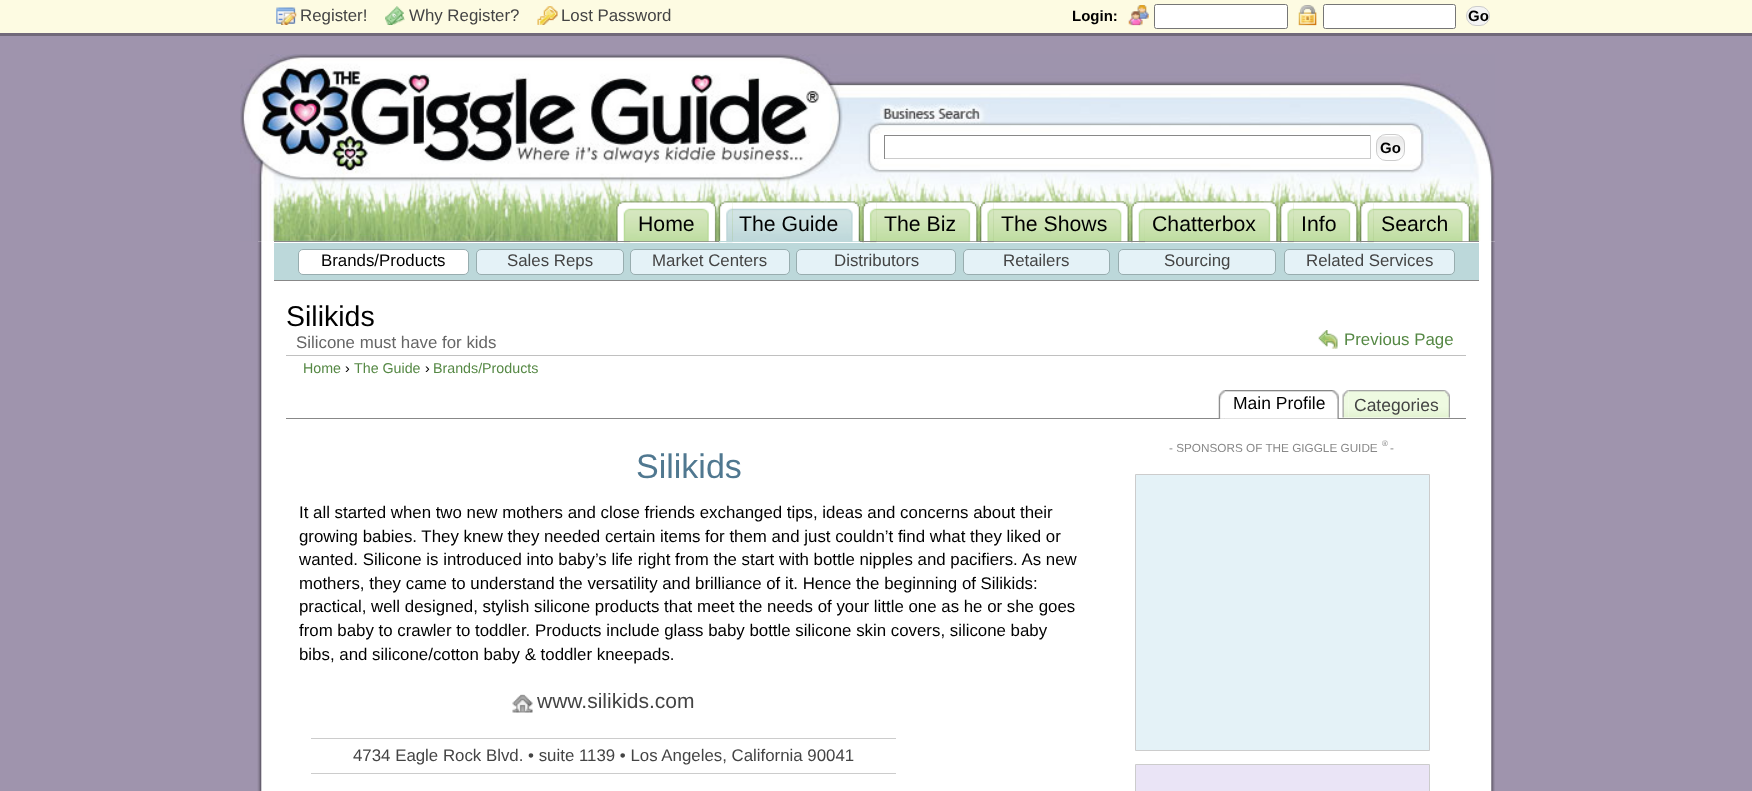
async function draw(canvas) {
	canvas.width = 1752;
	canvas.height = 791;
	const c = canvas.getContext('2d');
	c.miterLimit = 4;
	c.fontKerning = 'normal';
	async function loadImage(src) {
		const img = new Image();
		img.src = src;
		await img.decode();
		return img;
	}

	c.fillStyle = '#9f94ad';
	c.fillRect(0, 0, 1752, 791);
	c.fillStyle = '#fdfbe2';
	c.fillRect(0, 0, 1752, 33);
	c.fillStyle = '#71697a';
	c.fillRect(0, 33, 1752, 3);
	c.drawImage(await loadImage('img1.png'), 276, 7, 21, 18);
	c.font = '16.85px Liberation Sans';
	c.fillStyle = '#444';
	c.fillText('Register!', 300, 21);
	c.drawImage(await loadImage('img2.png'), 385, 6, 20, 19);
	c.fillText('Why Register?', 409, 21);
	c.drawImage(await loadImage('img3.png'), 537, 6, 21, 19);
	c.fillText('Lost Password', 561, 21);
	c.font = 'bold 15px Liberation Sans';
	c.fillStyle = '#000';
	c.fillText('Login:', 1072, 21);
	c.drawImage(await loadImage('img4.png'), 1128, 5, 21, 21);
	c.fillStyle = '#fff';
	c.beginPath();
	c.roundRect(1154.5, 4.5, 133, 24, 2);
	c.fill();
	c.strokeStyle = '#767676';
	c.stroke();
	c.drawImage(await loadImage('img5.png'), 1298, 5, 19, 21);
	c.beginPath();
	c.roundRect(1323.5, 4.5, 132, 24, 2);
	c.fill();
	c.stroke();
	c.fillStyle = '#f4f4f4';
	c.beginPath();
	c.roundRect(1466.5, 6.5, 23, 19, 9.5);
	c.fill();
	c.strokeStyle = '#ccc';
	c.stroke();
	c.fillStyle = '#000';
	c.fillText('Go', 1468, 21);
	c.drawImage(await loadImage('img6.png'), 257, 54, 1238, 188);
	c.drawImage(await loadImage('img7.png'), 240, 69, 1160, 173);
	c.fillStyle = '#fff';
	c.fillRect(258, 241, 1237, 550);
	c.drawImage(await loadImage('img8.png'), 257, 241, 5, 550);
	c.drawImage(await loadImage('img9.png'), 1491, 241, 4, 550);
	for (const [x, y, w, h, color] of [
		[274, 241, 1205, 1, '#888'],
		[884, 135, 487, 1, '#888'],
		[1370, 135, 1, 24, '#ccc'],
		[884, 158, 487, 1, '#ccc'],
		[884, 135, 1, 24, '#888'],
	]) {
		c.fillStyle = color;
		c.fillRect(x, y, w, h);
	}
	c.drawImage(await loadImage('img10.png'), 1377, 135, 28, 26);
	c.beginPath();
	c.roundRect(1376.5, 134.5, 28, 26, 9.5);
	c.stroke();
	c.fillStyle = '#000';
	c.fillText('Go', 1380, 153);
	c.drawImage(await loadImage('img11.png'), 616, 201, 15, 42);
	c.fillStyle = '#888';
	c.fillRect(616, 241, 15, 1);
	c.drawImage(await loadImage('img12.png'), 630, 201, 87, 41);
	c.font = '21.25px Liberation Sans';
	c.fillStyle = '#000';
	c.fillText('Home', 638, 231);
	c.drawImage(await loadImage('img13.png'), 718, 201, 15, 42);
	c.fillStyle = '#bcd8da';
	c.fillRect(719, 241, 141, 1);
	c.drawImage(await loadImage('img14.png'), 732, 201, 128, 41);
	c.fillStyle = '#000';
	c.fillText('The Guide', 739, 231);
	c.drawImage(await loadImage('img15.png'), 862, 201, 15, 42);
	c.fillStyle = '#888';
	c.fillRect(863, 241, 14, 1);
	c.drawImage(await loadImage('img16.png'), 876, 201, 102, 41);
	c.fillStyle = '#000';
	c.fillText('The Biz', 884, 231);
	c.drawImage(await loadImage('img17.png'), 980, 201, 14, 42);
	c.fillStyle = '#888';
	c.fillRect(980, 241, 14, 1);
	c.drawImage(await loadImage('img18.png'), 993, 201, 136, 41);
	c.fillStyle = '#000';
	c.fillText('The Shows', 1001, 231);
	c.drawImage(await loadImage('img19.png'), 1131, 201, 15, 42);
	c.fillStyle = '#888';
	c.fillRect(1131, 241, 15, 1);
	c.drawImage(await loadImage('img20.png'), 1145, 201, 133, 41);
	c.fillStyle = '#000';
	c.fillText('Chatterbox', 1152, 231);
	c.drawImage(await loadImage('img21.png'), 1280, 201, 14, 42);
	c.fillStyle = '#888';
	c.fillRect(1280, 241, 14, 1);
	c.drawImage(await loadImage('img22.png'), 1293, 201, 65, 41);
	c.fillStyle = '#000';
	c.fillText('Info', 1301, 231);
	c.drawImage(await loadImage('img23.png'), 1360, 201, 14, 42);
	c.fillStyle = '#888';
	c.fillRect(1360, 241, 14, 1);
	c.drawImage(await loadImage('img24.png'), 1373, 201, 97, 41);
	c.fillStyle = '#000';
	c.fillText('Search', 1381, 231);
	c.fillStyle = '#bcd8da';
	c.fillRect(274, 243, 1205, 37);
	c.fillStyle = '#888';
	c.fillRect(274, 280, 1205, 1);
	c.fillStyle = '#fff';
	c.beginPath();
	c.roundRect(298.5, 249.5, 170, 25, 4.5);
	c.fill();
	c.strokeStyle = '#98adaf';
	c.stroke();
	c.font = '16.85px Liberation Sans';
	c.fillStyle = '#000';
	c.fillText('Brands/Products', 321, 266);
	c.fillStyle = '#e4f2f7';
	c.beginPath();
	c.roundRect(476.5, 249.5, 147, 25, 4.5);
	c.fill();
	c.stroke();
	c.fillStyle = '#444';
	c.fillText('Sales Reps', 507, 266);
	c.fillStyle = '#e4f2f7';
	c.beginPath();
	c.roundRect(630.5, 249.5, 159, 25, 4.5);
	c.fill();
	c.stroke();
	c.fillStyle = '#444';
	c.fillText('Market Centers', 652, 266);
	c.fillStyle = '#e4f2f7';
	c.beginPath();
	c.roundRect(796.5, 249.5, 159, 25, 4.5);
	c.fill();
	c.stroke();
	c.fillStyle = '#444';
	c.fillText('Distributors', 834, 266);
	c.fillStyle = '#e4f2f7';
	c.beginPath();
	c.roundRect(963.5, 249.5, 146, 25, 4.5);
	c.fill();
	c.stroke();
	c.fillStyle = '#444';
	c.fillText('Retailers', 1003, 266);
	c.fillStyle = '#e4f2f7';
	c.beginPath();
	c.roundRect(1118.5, 249.5, 157, 25, 4.5);
	c.fill();
	c.stroke();
	c.fillStyle = '#444';
	c.fillText('Sourcing', 1164, 266);
	c.fillStyle = '#e4f2f7';
	c.beginPath();
	c.roundRect(1284.5, 249.5, 170, 25, 4.5);
	c.fill();
	c.stroke();
	c.fillStyle = '#444';
	c.fillText('Related Services', 1306, 266);
	c.font = '28.5px Liberation Sans';
	c.fillStyle = '#000';
	c.fillText('Silikids', 286, 326);
	c.font = '16.85px Liberation Sans';
	c.fillStyle = '#666';
	c.fillText('Silicone must have for kids', 296, 348);
	c.drawImage(await loadImage('img25.png'), 1318, 330, 20, 19);
	c.fillStyle = '#584';
	c.fillText('Previous Page', 1344, 345);
	c.fillStyle = '#c0c0c0';
	c.fillRect(286, 355, 1180, 1);
	c.font = '14.25px Liberation Sans';
	c.fillStyle = '#584';
	c.fillText('Home', 303, 373);
	c.fillStyle = '#000';
	c.fillText('›', 345, 373);
	c.fillStyle = '#584';
	c.fillText('The Guide', 354, 373);
	c.fillStyle = '#000';
	c.fillText('›', 425, 373);
	c.fillStyle = '#584';
	c.fillText('Brands/Products', 433, 373);
	c.fillStyle = '#888';
	c.fillRect(286, 418, 1180, 1);
	c.drawImage(await loadImage('img26.png'), 1218, 390, 8, 29);
	c.drawImage(await loadImage('img27.png'), 1225, 390, 114, 29);
	c.font = '17.5px Liberation Sans';
	c.fillStyle = '#000';
	c.fillText('Main Profile', 1233, 409);
	c.drawImage(await loadImage('img28.png'), 1342, 390, 7, 28);
	c.drawImage(await loadImage('img29.png'), 1348, 390, 102, 28);
	c.fillStyle = '#444';
	c.fillText('Categories', 1354, 411);
	c.font = '11.75px Liberation Sans';
	c.fillStyle = '#888';
	c.fillText('- SPONSORS OF THE GIGGLE GUIDE', 1169, 452);
	c.font = '8px Liberation Sans';
	c.fillText('®', 1382, 446);
	c.font = '11.75px Liberation Sans';
	c.fillText('-', 1390, 452);
	c.fillStyle = '#e4f2f7';
	c.beginPath();
	c.rect(1135.5, 474.5, 294, 276);
	c.fill();
	c.strokeStyle = '#ccc';
	c.stroke();
	c.fillStyle = '#eae4f6';
	c.beginPath();
	c.rect(1135.5, 764.5, 294, 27);
	c.fill();
	c.stroke();
	c.font = '34px Liberation Sans';
	c.fillStyle = '#507890';
	c.fillText('Silikids', 636, 478);
	c.font = '16.85px Liberation Sans';
	c.fillStyle = '#000';
	for (const [text, x, y] of [
		['It all started when two new mothers and close friends exchanged tips, ideas and concerns about their', 299, 518],
		['growing babies. They knew they needed certain items for them and just couldn’t find what they liked or', 299, 542],
		['wanted. Silicone is introduced into baby’s life right from the start with bottle nipples and pacifiers. As new', 299, 565],
		['mothers, they came to understand the versatility and brilliance of it. Hence the beginning of Silikids:', 299, 589],
		['practical, well designed, stylish silicone products that meet the needs of your little one as he or she goes', 299, 612],
		['from baby to crawler to toddler.', 299, 636],
		['Products include glass baby bottle silicone skin covers, silicone baby', 535, 636],
		['bibs, and silicone/cotton baby & toddler kneepads.', 299, 660],
	]) {
		c.fillText(text, x, y);
	}
	c.drawImage(await loadImage('img30.png'), 512, 694, 21, 19);
	c.save();
	c.beginPath();
	c.rect(311, 693, 585, 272);
	c.clip();
	c.font = '21px Liberation Sans';
	c.fillStyle = '#444';
	c.fillText('www.silikids.com', 537, 708);
	c.restore();
	c.fillStyle = '#ccc';
	c.fillRect(311, 738, 585, 1);
	c.fillRect(311, 773, 585, 1);
	c.fillStyle = '#444';
	c.fillText('4734 Eagle Rock Blvd. • suite 1139 • Los Angeles, California 90041', 353, 761);
}

draw(document.querySelector('canvas'));
